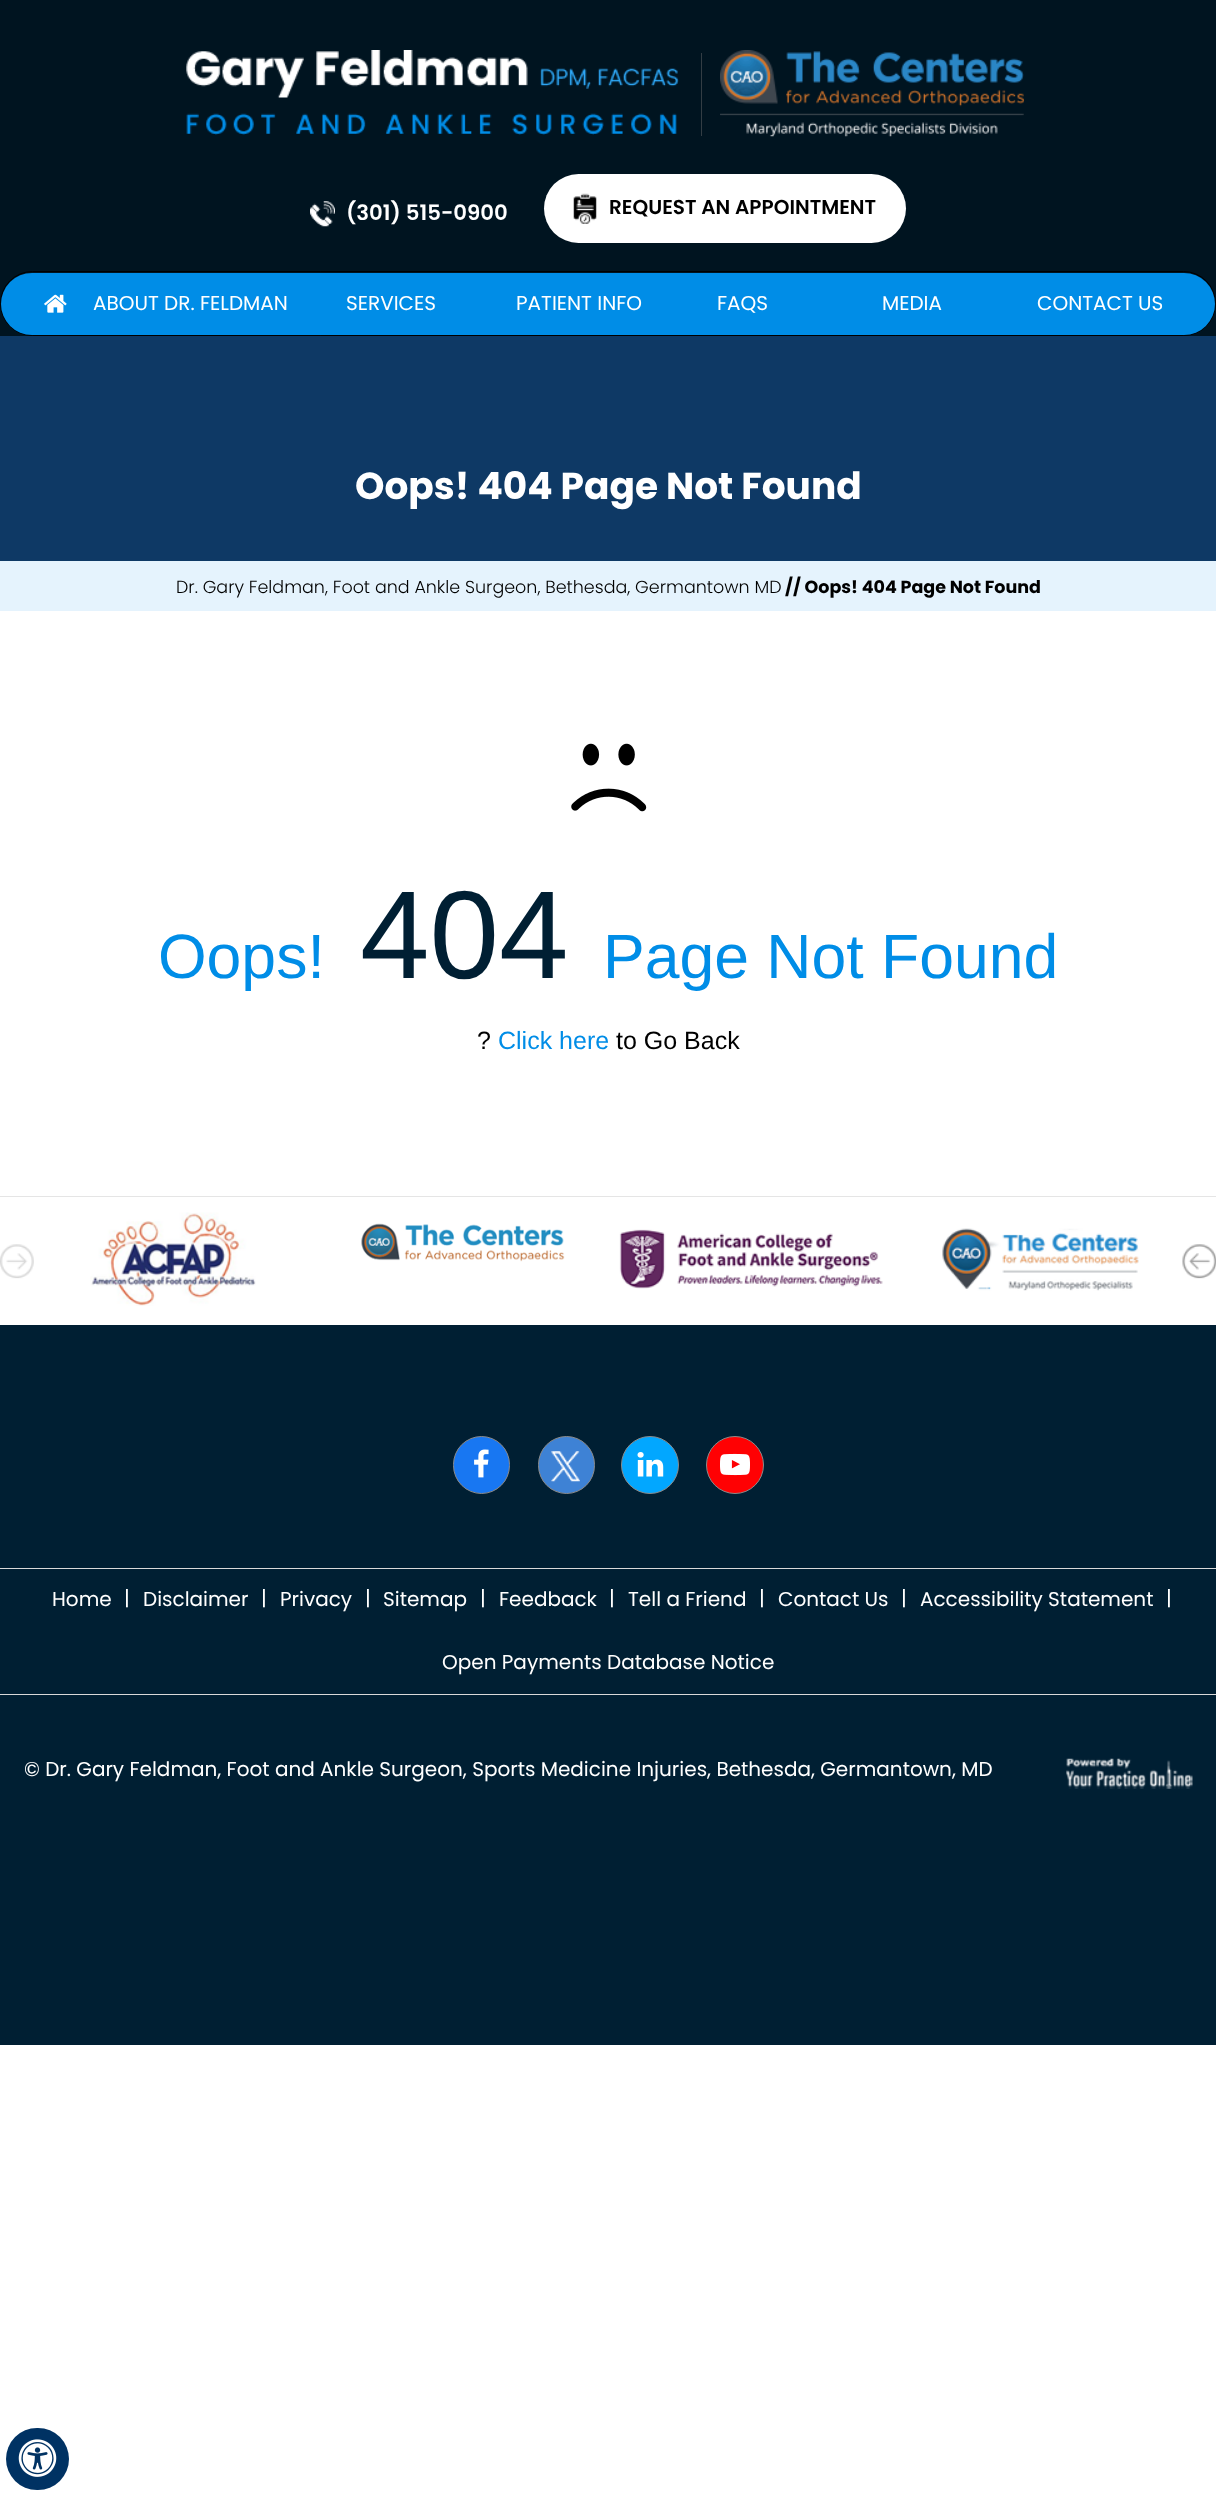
async function draw(canvas) {
	canvas.width = 1216;
	canvas.height = 2514;
	const c = canvas.getContext('2d');
	c.miterLimit = 4;
	c.fontKerning = 'normal';
	async function loadImage(src) {
		const img = new Image();
		img.src = src;
		await img.decode();
		return img;
	}

	c.fillStyle = '#fff';
	c.fillRect(0, 0, 1216, 2514);
	c.fillStyle = '#001420';
	c.fillRect(0, 0, 1216, 336);
	c.drawImage(await loadImage('img1.png'), 186, 50, 493, 85);
	c.fillStyle = '#333d44';
	c.fillRect(701, 53, 1, 83);
	c.drawImage(await loadImage('img2.png'), 720, 50, 304, 87);
	c.drawImage(await loadImage('img3.png'), 310, 201, 25, 26);
	c.font = '600 21.25px Poppins';
	c.fillStyle = '#fff';
	c.fillText('(301) 515-0900', 346, 220);
	c.beginPath();
	c.roundRect(544, 174, 362, 69, 34.5);
	c.fill();
	c.drawImage(await loadImage('img4.png'), 573, 193, 24, 31);
	c.font = '600 20px Poppins';
	c.fillStyle = '#000';
	c.fillText('REQUEST AN APPOINTMENT', 609, 214);
	c.beginPath();
	c.roundRect(0.5, 271.5, 1215, 64, 32);
	c.strokeStyle = '#000';
	c.stroke();
	c.fillStyle = '#008de7';
	c.beginPath();
	c.roundRect(1, 273, 1214, 62, 31);
	c.fill();
	c.drawImage(await loadImage('img5.png'), 44, 294, 23, 19);
	c.font = '20px Poppins';
	c.fillStyle = '#fff';
	for (const [text, x, y] of [
		['ABOUT DR. FELDMAN', 93, 310],
		['SERVICES', 346, 310],
		['PATIENT INFO', 516, 310],
		['FAQS', 717, 310],
		['MEDIA', 882, 310],
		['CONTACT US', 1037, 310],
	]) {
		c.fillText(text, x, y);
	}
	c.fillStyle = '#0e3965';
	c.fillRect(0, 336, 1216, 225);
	c.font = 'bold 37.5px Poppins';
	c.fillStyle = '#fff';
	c.fillText('Oops! 404 Page Not Found', 355, 499);
	c.fillStyle = '#e5f3fd';
	c.fillRect(0, 561, 1216, 50);
	c.font = '300 17.5px Poppins';
	c.fillStyle = '#000';
	c.fillText('Dr. Gary Feldman, Foot and Ankle Surgeon, Bethesda, Germantown MD', 176, 593);
	c.font = 'bold 17.5px Poppins';
	c.fillText('// Oops! 404 Page Not Found', 785, 593);
	c.fillStyle = '#e5e5e5';
	c.fillRect(0, 1196, 1216, 1);
	c.drawImage(await loadImage('img6.png'), 571, 743, 76, 69);
	c.font = '62.5px Liberation Sans';
	c.fillStyle = '#008de7';
	c.fillText('Oops!', 158, 978);
	c.font = '125px Liberation Sans';
	c.fillStyle = '#001f33';
	c.fillText('404', 360, 978);
	c.font = '62.5px Liberation Sans';
	c.fillStyle = '#008de7';
	c.fillText('Page Not Found', 603, 978);
	c.font = '25px Liberation Sans';
	c.fillStyle = '#000';
	c.fillText('?', 477, 1049);
	c.fillStyle = '#008de7';
	c.fillText('Click here', 498, 1049);
	c.fillStyle = '#000';
	c.fillText('to Go Back', 616, 1049);
	c.drawImage(await loadImage('img7.png'), 0, 1244, 34, 35);
	c.drawImage(await loadImage('img8.png'), 90, 1212, 166, 94);
	c.drawImage(await loadImage('img9.png'), 361, 1223, 204, 39);
	c.drawImage(await loadImage('img10.png'), 619, 1229, 264, 60);
	c.drawImage(await loadImage('img11.png'), 942, 1228, 197, 63);
	c.drawImage(await loadImage('img12.png'), 1182, 1244, 34, 35);
	c.fillStyle = '#001f33';
	c.fillRect(0, 1325, 1216, 720);
	c.fillStyle = '#1877f2';
	c.beginPath();
	c.roundRect(453.5, 1436.5, 56, 57, 28);
	c.fill();
	c.strokeStyle = '#8a8a8a';
	c.stroke();
	c.drawImage(await loadImage('img13.png'), 474, 1449, 15, 29);
	c.fillStyle = '#3e82d5';
	c.beginPath();
	c.roundRect(538.5, 1436.5, 56, 57, 28);
	c.fill();
	c.stroke();
	c.drawImage(await loadImage('img14.png'), 551, 1451, 29, 31);
	c.fillStyle = '#02a7ff';
	c.beginPath();
	c.arc(650, 1465, 28.5, 0, 2 * Math.PI);
	c.fill();
	c.stroke();
	c.drawImage(await loadImage('img15.png'), 637, 1452, 27, 25);
	c.fillStyle = '#ff0103';
	c.beginPath();
	c.arc(735, 1465, 28.5, 0, 2 * Math.PI);
	c.fill();
	c.stroke();
	c.drawImage(await loadImage('img16.png'), 720, 1453, 30, 23);
	c.fillStyle = '#d9d9d9';
	c.fillRect(0, 1568, 1216, 1);
	c.fillRect(0, 1694, 1216, 1);
	c.font = '20px Poppins';
	c.fillStyle = '#fff';
	for (const [text, x, y] of [
		['Home', 52, 1606],
		['|', 124, 1605],
		['Disclaimer', 143, 1606],
		['|', 261, 1605],
		['Privacy', 280, 1606],
		['|', 365, 1605],
		['Sitemap', 383, 1606],
		['|', 480, 1605],
		['Feedback', 499, 1606],
		['|', 609, 1605],
		['Tell a Friend', 628, 1606],
		['|', 759, 1605],
		['Contact Us', 778, 1606],
		['|', 901, 1605],
		['Accessibility Statement', 920, 1606],
		['|', 1166, 1605],
		['Open Payments Database Notice', 442, 1669],
		['© Dr. Gary Feldman, Foot and Ankle Surgeon, Sports Medicine Injuries, Bethesda, Germantown, MD', 24, 1776],
	]) {
		c.fillText(text, x, y);
	}
	c.drawImage(await loadImage('img17.png'), 1066, 1758, 127, 31);
	c.fillStyle = '#003263';
	c.beginPath();
	c.roundRect(6, 2428, 63, 62, 31);
	c.fill();
	c.drawImage(await loadImage('img18.png'), 18, 2439, 39, 38);
}

draw(document.querySelector('canvas'));
